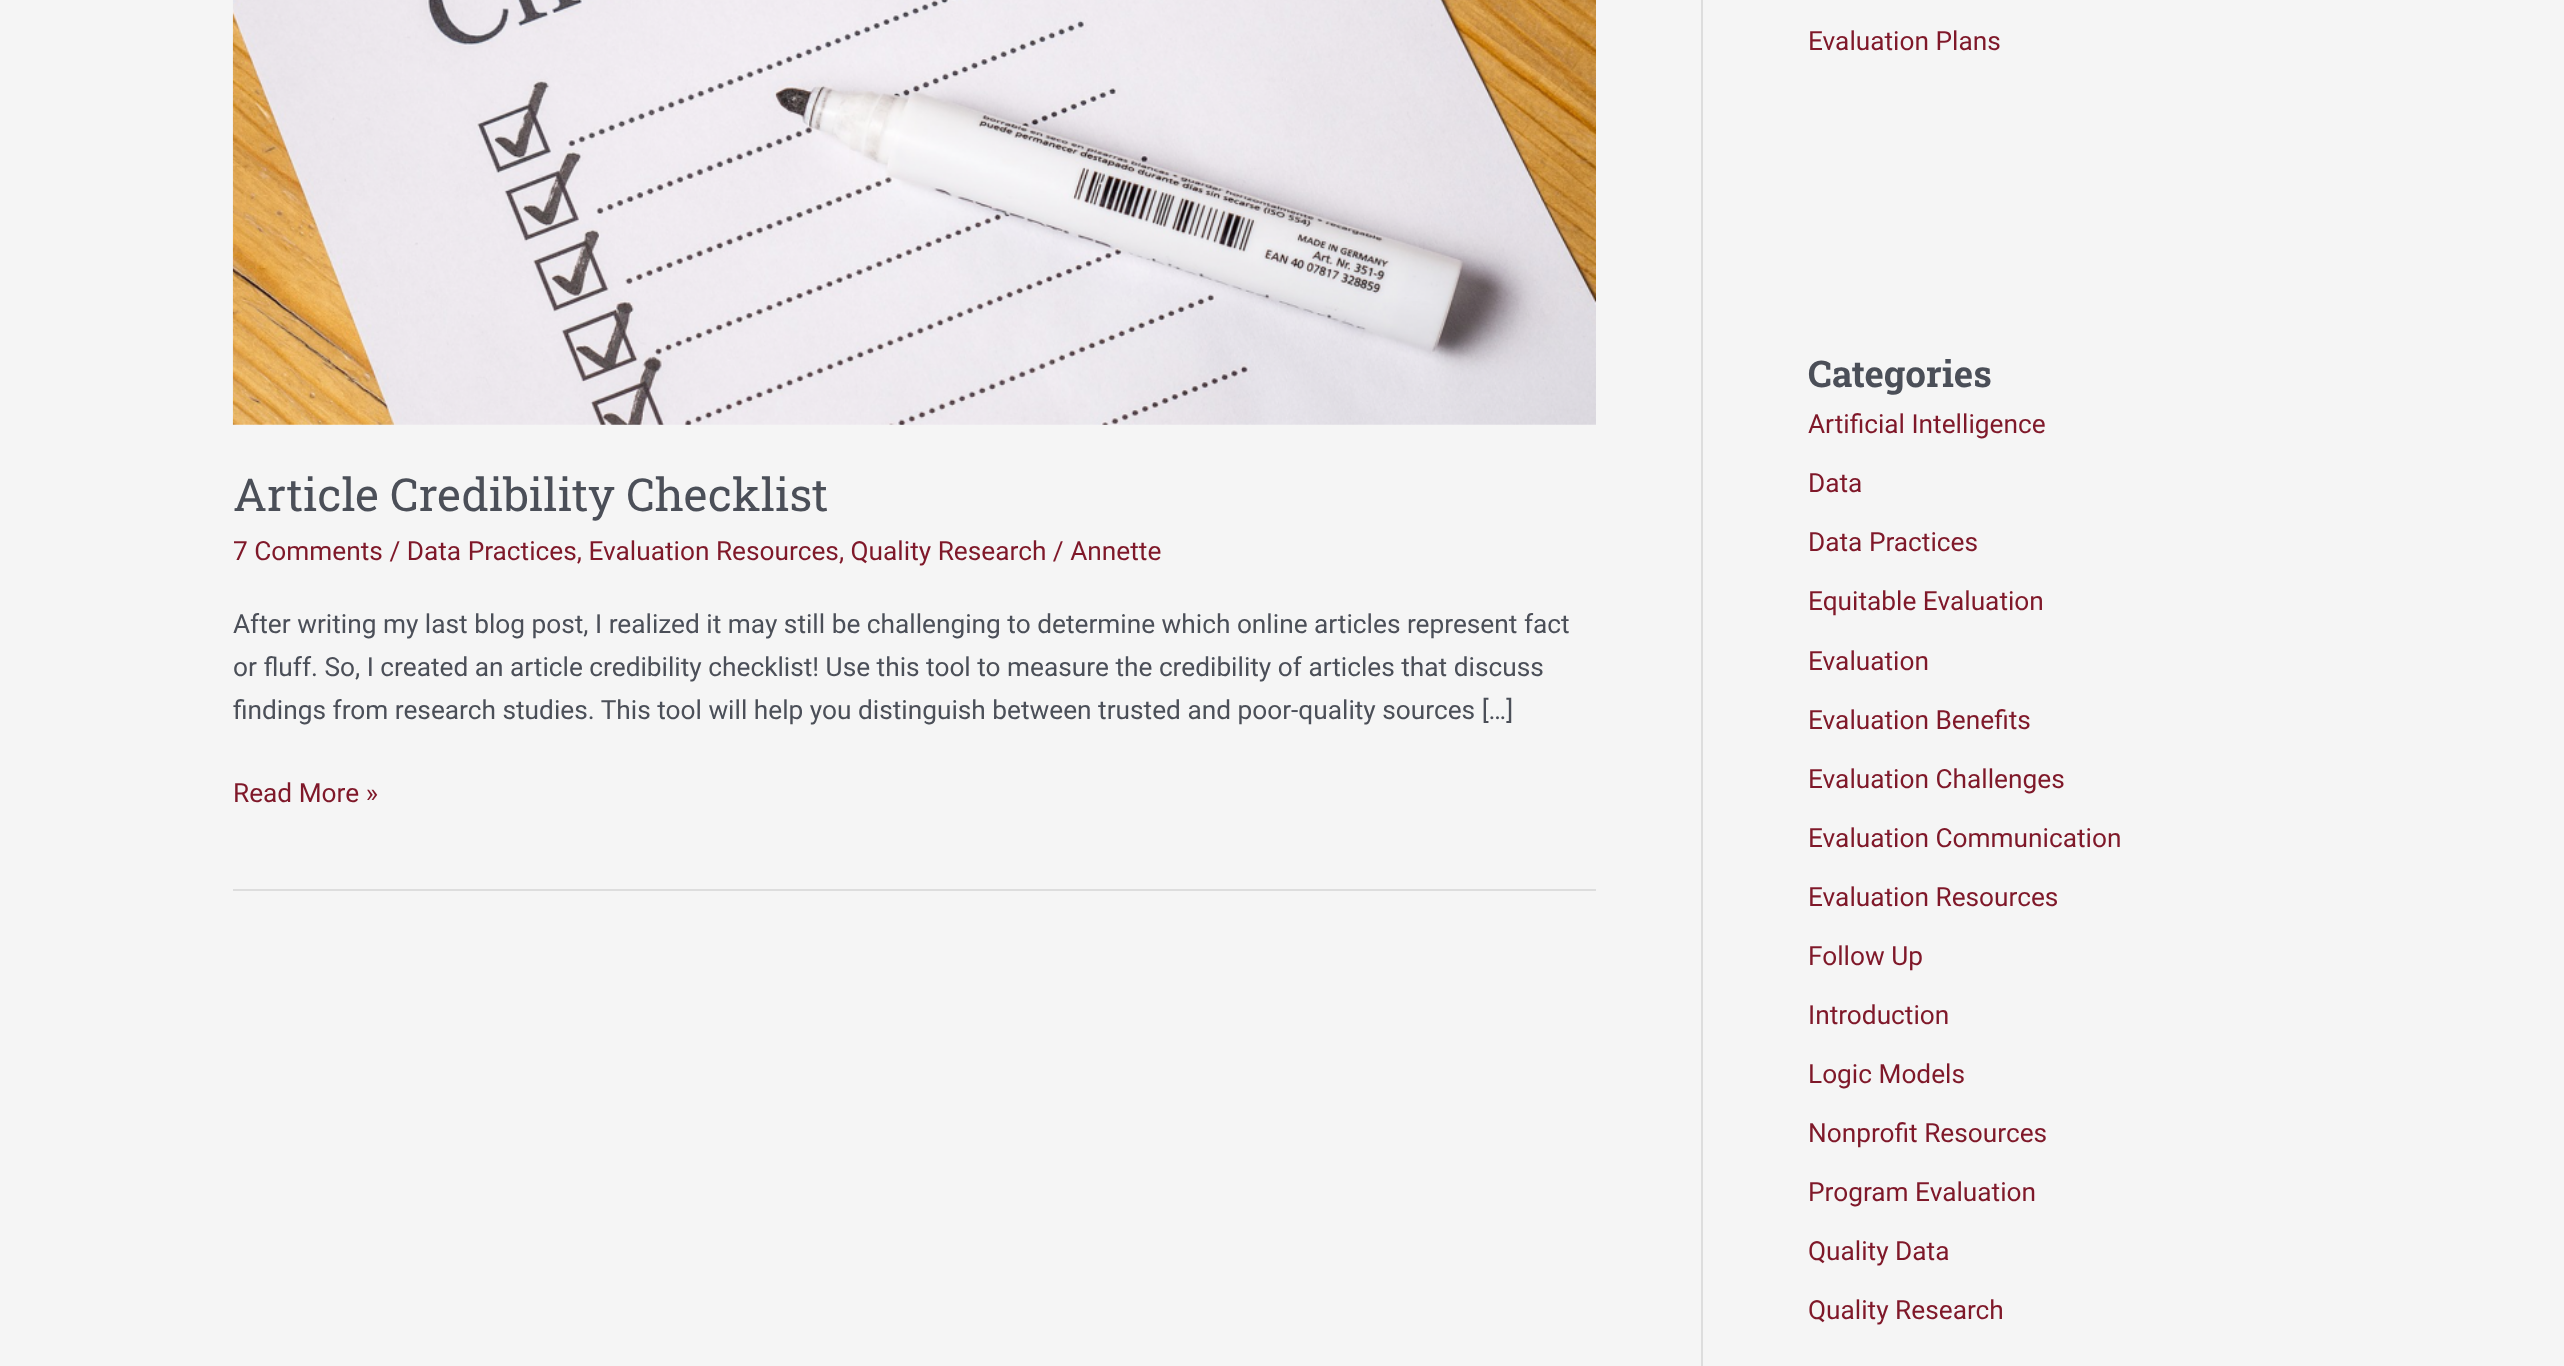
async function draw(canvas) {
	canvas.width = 2564;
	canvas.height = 1366;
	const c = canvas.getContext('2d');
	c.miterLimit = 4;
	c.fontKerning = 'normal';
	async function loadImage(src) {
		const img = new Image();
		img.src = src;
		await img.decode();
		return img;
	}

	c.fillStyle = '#f5f5f5';
	c.fillRect(0, 0, 2564, 1366);
	c.fillStyle = '#ddd';
	c.fillRect(1701, 0, 2, 1366);
	c.fillRect(233, 889, 1363, 2);
	c.drawImage(await loadImage('img1.png'), 232, 0, 1364, 425);
	c.font = '45.5px Roboto Slab';
	c.fillStyle = '#4b4f58';
	c.fillText('Article Credibility Checklist', 233, 511);
	c.font = '26.25px Roboto';
	c.fillStyle = '#7f1829';
	c.fillText('7 Comments / Data Practices, Evaluation Resources, Quality Research / Annette', 233, 560);
	c.fillStyle = '#4b4f58';
	for (const [text, x, y] of [
		['After writing my last blog post, I realized it may still be challenging to determine which online articles represent fact', 233, 633],
		['or fluff. So, I created an article credibility checklist! Use this tool to measure the credibility of articles that discuss', 233, 676],
		['findings from research studies. This tool will help you distinguish between trusted and poor-quality sources […]', 233, 719],
	]) {
		c.fillText(text, x, y);
	}
	c.fillStyle = '#7f1829';
	c.fillText('Read More »', 233, 802);
	c.fillText('Evaluation Plans', 1808, 50);
	c.font = 'bold 36.75px Roboto Slab';
	c.fillStyle = '#4b4f58';
	c.fillText('Categories', 1808, 387);
	c.font = '26.25px Roboto';
	c.fillStyle = '#7f1829';
	for (const [text, x, y] of [
		['Artificial Intelligence', 1808, 433],
		['Data', 1808, 492],
		['Data Practices', 1808, 551],
		['Equitable Evaluation', 1808, 610],
		['Evaluation', 1808, 670],
		['Evaluation Benefits', 1808, 729],
		['Evaluation Challenges', 1808, 788],
		['Evaluation Communication', 1808, 847],
		['Evaluation Resources', 1808, 906],
		['Follow Up', 1808, 965],
		['Introduction', 1808, 1024],
		['Logic Models', 1808, 1083],
		['Nonprofit Resources', 1808, 1142],
		['Program Evaluation', 1808, 1201],
		['Quality Data', 1808, 1260],
		['Quality Research', 1808, 1319],
	]) {
		c.fillText(text, x, y);
	}
}

draw(document.querySelector('canvas'));
